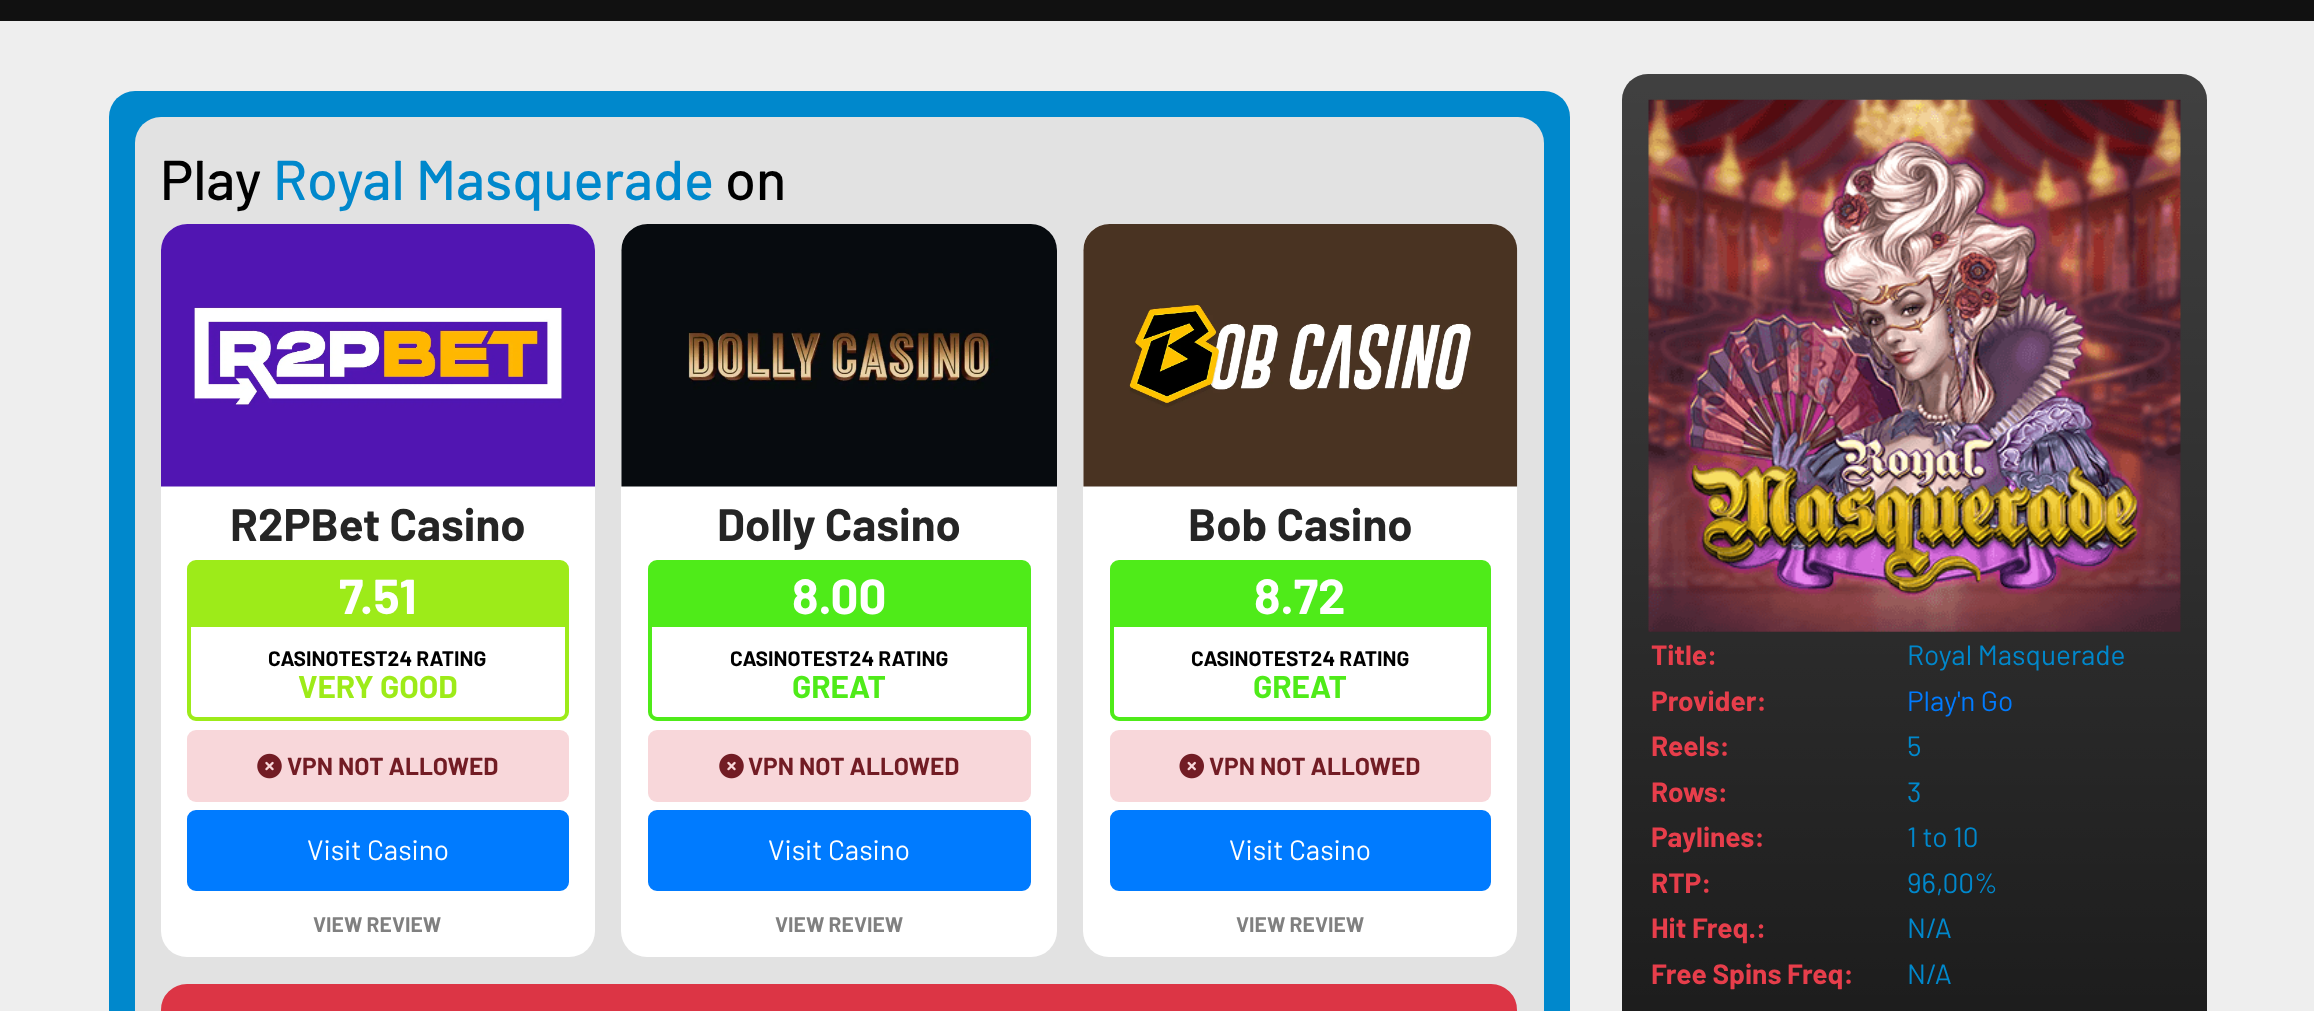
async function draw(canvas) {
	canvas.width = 2314;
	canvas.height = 1011;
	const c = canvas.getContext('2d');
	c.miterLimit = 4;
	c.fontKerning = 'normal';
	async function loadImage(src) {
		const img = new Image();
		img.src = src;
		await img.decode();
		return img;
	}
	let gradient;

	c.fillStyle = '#eee';
	c.fillRect(0, 0, 2314, 1011);
	c.fillStyle = '#111';
	c.fillRect(0, 0, 2314, 21);
	c.fillStyle = '#08c';
	c.beginPath();
	c.roundRect(109, 91, 1461, 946, 26);
	c.fill();
	c.fillStyle = '#e2e2e2';
	c.beginPath();
	c.roundRect(135, 117, 1409, 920, 26);
	c.fill();
	c.font = '500 56px Barlow';
	c.fillStyle = '#000';
	c.fillText('Play', 160, 200);
	c.fillStyle = '#08c';
	c.fillText('Royal Masquerade', 273, 200);
	c.fillStyle = '#000';
	c.fillText('on', 725, 200);
	c.fillStyle = '#fff';
	c.beginPath();
	c.roundRect(161, 224, 434, 733, 26);
	c.fill();
	c.drawImage(await loadImage('img1.png'), 161, 224, 434, 263);
	c.font = 'bold 45.5px Barlow';
	c.fillStyle = '#252525';
	c.fillText('R2PBet Casino', 230, 541);
	c.beginPath();
	c.roundRect(189, 562, 378, 157, 7);
	c.strokeStyle = '#9deb19';
	c.lineWidth = 4;
	c.stroke();
	c.fillStyle = '#9deb19';
	c.fillRect(191, 564, 374, 63);
	c.font = 'bold 49px Barlow';
	c.fillStyle = '#fff';
	c.fillText('7.51', 339, 614);
	c.font = 'bold 21px Barlow';
	c.fillStyle = '#000';
	c.fillText('CASINOTEST24 RATING', 268, 666);
	c.font = 'bold 31.5px Barlow';
	c.fillStyle = '#9deb19';
	c.fillText('VERY GOOD', 298, 698);
	c.fillStyle = '#f8d7da';
	c.beginPath();
	c.roundRect(187, 730, 382, 72, 9);
	c.fill();
	c.drawImage(await loadImage('img2.png'), 257, 753, 25, 26);
	c.font = 'bold 24.5px Barlow';
	c.fillStyle = '#721c24';
	c.fillText('VPN NOT ALLOWED', 287, 775);
	c.fillStyle = '#007bff';
	c.beginPath();
	c.roundRect(188, 811, 380, 79, 8);
	c.fill();
	c.strokeStyle = '#007bff';
	c.lineWidth = 2;
	c.stroke();
	c.font = '28px Barlow';
	c.fillStyle = '#fff';
	c.fillText('Visit Casino', 307, 860);
	c.font = 'bold 21px Barlow';
	c.fillStyle = '#808080';
	c.fillText('VIEW REVIEW', 313, 932);
	c.fillStyle = '#fff';
	c.beginPath();
	c.roundRect(621, 224, 436, 733, 26);
	c.fill();
	c.drawImage(await loadImage('img3.png'), 621, 224, 436, 263);
	c.font = 'bold 45.5px Barlow';
	c.fillStyle = '#252525';
	c.fillText('Dolly Casino', 717, 541);
	c.beginPath();
	c.roundRect(650, 562, 379, 157, 7);
	c.strokeStyle = '#4feb19';
	c.lineWidth = 4;
	c.stroke();
	c.fillStyle = '#4feb19';
	c.fillRect(652, 564, 375, 63);
	c.font = 'bold 49px Barlow';
	c.fillStyle = '#fff';
	c.fillText('8.00', 792, 614);
	c.font = 'bold 21px Barlow';
	c.fillStyle = '#000';
	c.fillText('CASINOTEST24 RATING', 730, 666);
	c.font = 'bold 31.5px Barlow';
	c.fillStyle = '#4feb19';
	c.fillText('GREAT', 792, 698);
	c.fillStyle = '#f8d7da';
	c.beginPath();
	c.roundRect(648, 730, 383, 72, 9);
	c.fill();
	c.drawImage(await loadImage('img2.png'), 719, 753, 25, 26);
	c.font = 'bold 24.5px Barlow';
	c.fillStyle = '#721c24';
	c.fillText('VPN NOT ALLOWED', 748, 775);
	c.fillStyle = '#007bff';
	c.beginPath();
	c.roundRect(649, 811, 381, 79, 8);
	c.fill();
	c.strokeStyle = '#007bff';
	c.lineWidth = 2;
	c.stroke();
	c.font = '28px Barlow';
	c.fillStyle = '#fff';
	c.fillText('Visit Casino', 768, 860);
	c.font = 'bold 21px Barlow';
	c.fillStyle = '#808080';
	c.fillText('VIEW REVIEW', 775, 932);
	c.fillStyle = '#fff';
	c.beginPath();
	c.roundRect(1083, 224, 434, 733, 26);
	c.fill();
	c.drawImage(await loadImage('img4.png'), 1083, 224, 435, 263);
	c.font = 'bold 45.5px Barlow';
	c.fillStyle = '#252525';
	c.fillText('Bob Casino', 1188, 541);
	c.beginPath();
	c.roundRect(1112, 562, 377, 157, 7);
	c.strokeStyle = '#4feb19';
	c.lineWidth = 4;
	c.stroke();
	c.fillStyle = '#4feb19';
	c.fillRect(1114, 564, 373, 63);
	c.font = 'bold 49px Barlow';
	c.fillStyle = '#fff';
	c.fillText('8.72', 1254, 614);
	c.font = 'bold 21px Barlow';
	c.fillStyle = '#000';
	c.fillText('CASINOTEST24 RATING', 1191, 666);
	c.font = 'bold 31.5px Barlow';
	c.fillStyle = '#4feb19';
	c.fillText('GREAT', 1253, 698);
	c.fillStyle = '#f8d7da';
	c.beginPath();
	c.roundRect(1110, 730, 381, 72, 9);
	c.fill();
	c.drawImage(await loadImage('img5.png'), 1179, 753, 25, 26);
	c.font = 'bold 24.5px Barlow';
	c.fillStyle = '#721c24';
	c.fillText('VPN NOT ALLOWED', 1209, 775);
	c.fillStyle = '#007bff';
	c.beginPath();
	c.roundRect(1111, 811, 379, 79, 8);
	c.fill();
	c.strokeStyle = '#007bff';
	c.lineWidth = 2;
	c.stroke();
	c.font = '28px Barlow';
	c.fillStyle = '#fff';
	c.fillText('Visit Casino', 1229, 860);
	c.font = 'bold 21px Barlow';
	c.fillStyle = '#808080';
	c.fillText('VIEW REVIEW', 1236, 932);
	c.fillStyle = '#dc3545';
	c.beginPath();
	c.roundRect(162, 985, 1354, 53, 25);
	c.fill();
	c.strokeStyle = '#dc3545';
	c.stroke();
	c.fillStyle = '#111';
	c.beginPath();
	c.roundRect(1622, 74, 585, 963, 26);
	c.fill();
	gradient = c.createLinearGradient(1915, 74, 1915, 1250);
	gradient.addColorStop(0, '#ffffff33');
	gradient.addColorStop(1, '#ffffff03');
	c.fillStyle = gradient;
	c.beginPath();
	c.roundRect(1622, 74, 585, 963, 26);
	c.fill();
	c.drawImage(await loadImage('img6.png'), 1648, 99, 533, 533);
	c.font = 'bold 28px Barlow';
	c.fillStyle = '#e73e4b';
	c.fillText('Title:', 1651, 665);
	c.font = '28px Barlow';
	c.fillStyle = '#08c';
	c.fillText('Royal Masquerade', 1907, 665);
	c.font = 'bold 28px Barlow';
	c.fillStyle = '#e73e4b';
	c.fillText('Provider:', 1651, 711);
	c.font = '28px Barlow';
	c.fillStyle = '#007bff';
	c.fillText('Play\'n Go', 1907, 711);
	c.font = 'bold 28px Barlow';
	c.fillStyle = '#e73e4b';
	c.fillText('Reels:', 1651, 756);
	c.font = '28px Barlow';
	c.fillStyle = '#08c';
	c.fillText('5', 1907, 756);
	c.font = 'bold 28px Barlow';
	c.fillStyle = '#e73e4b';
	c.fillText('Rows:', 1651, 802);
	c.font = '28px Barlow';
	c.fillStyle = '#08c';
	c.fillText('3', 1907, 802);
	c.font = 'bold 28px Barlow';
	c.fillStyle = '#e73e4b';
	c.fillText('Paylines:', 1651, 847);
	c.font = '28px Barlow';
	c.fillStyle = '#08c';
	c.fillText('1 to 10', 1907, 847);
	c.font = 'bold 28px Barlow';
	c.fillStyle = '#e73e4b';
	c.fillText('RTP:', 1651, 893);
	c.font = '28px Barlow';
	c.fillStyle = '#08c';
	c.fillText('96,00%', 1907, 893);
	c.font = 'bold 28px Barlow';
	c.fillStyle = '#e73e4b';
	c.fillText('Hit Freq.:', 1651, 938);
	c.font = '28px Barlow';
	c.fillStyle = '#08c';
	c.fillText('N/A', 1907, 938);
	c.font = 'bold 28px Barlow';
	c.fillStyle = '#e73e4b';
	c.fillText('Free Spins Freq:', 1651, 984);
	c.font = '28px Barlow';
	c.fillStyle = '#08c';
	c.fillText('N/A', 1907, 984);
}

draw(document.querySelector('canvas'));
